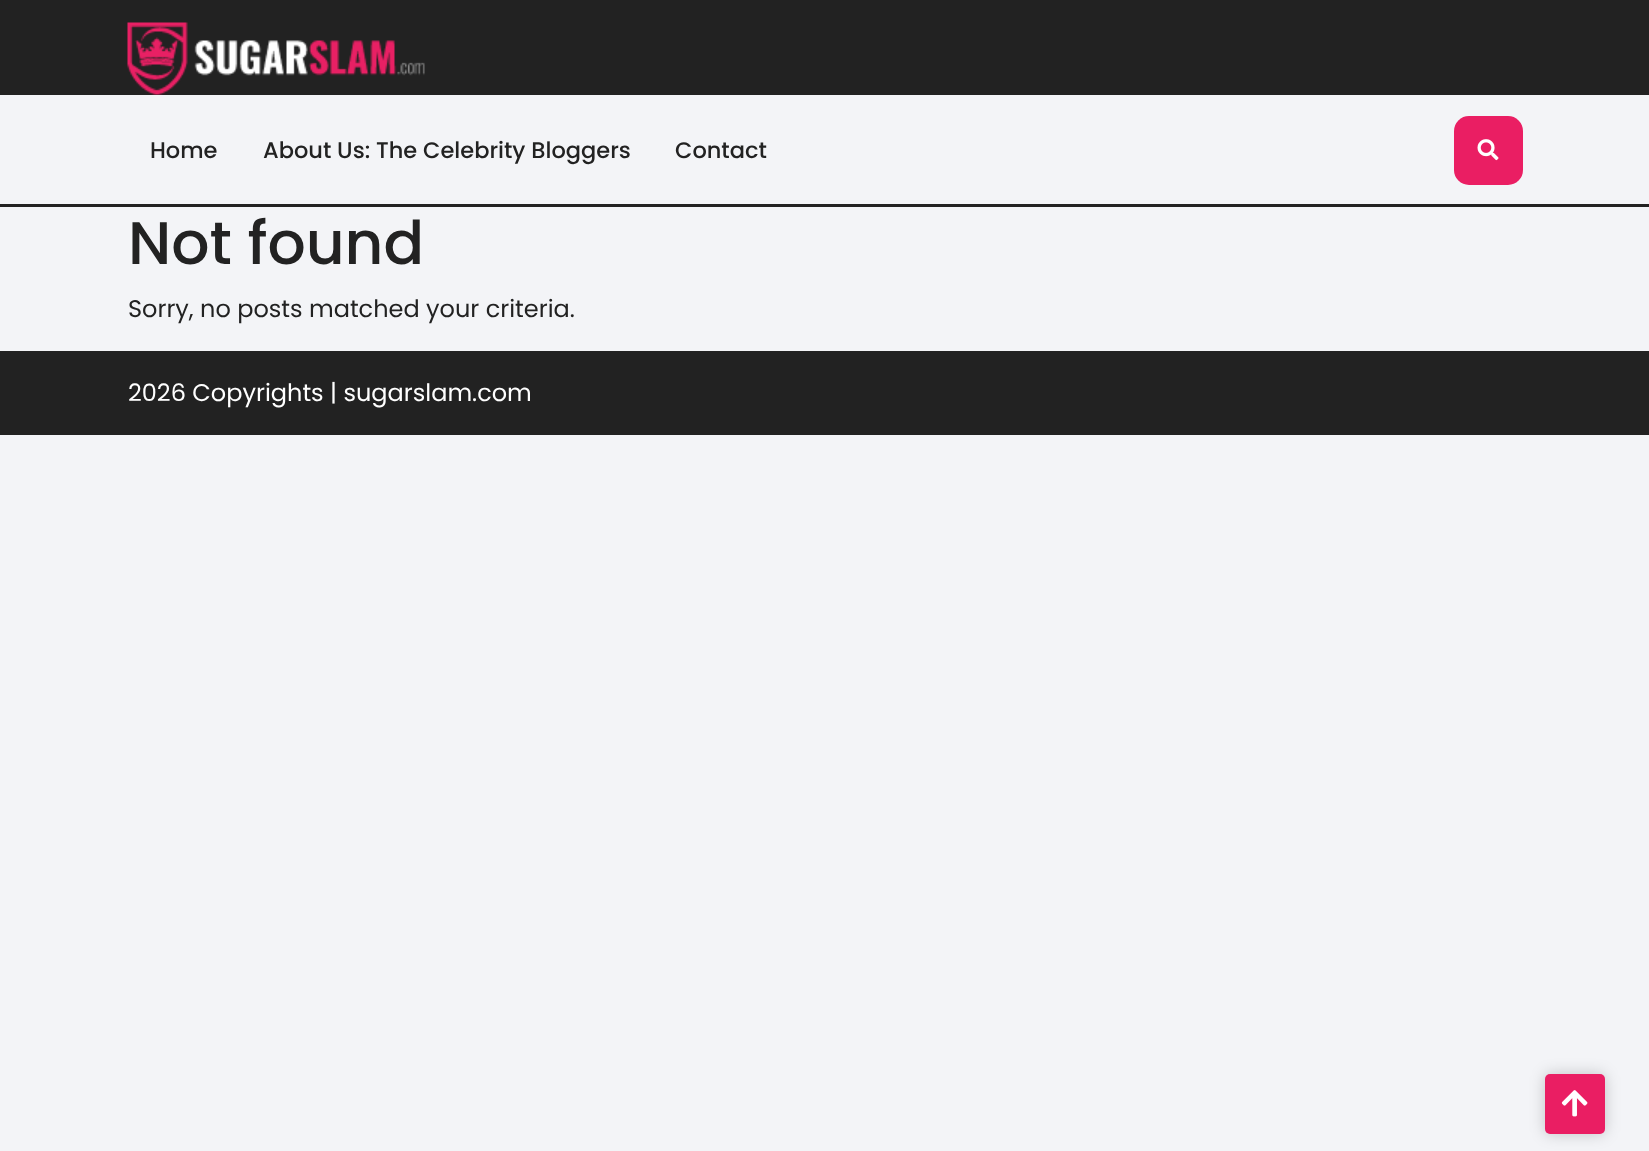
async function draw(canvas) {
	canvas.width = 1649;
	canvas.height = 1151;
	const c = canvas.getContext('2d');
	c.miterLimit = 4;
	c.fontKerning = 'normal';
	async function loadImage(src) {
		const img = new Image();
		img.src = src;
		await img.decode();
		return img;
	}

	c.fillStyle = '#f3f4f7';
	c.fillRect(0, 0, 1649, 1151);
	c.fillStyle = '#222';
	c.fillRect(0, 0, 1649, 95);
	c.drawImage(await loadImage('img1.png'), 127, 22, 298, 73);
	c.fillRect(0, 204, 1649, 3);
	c.font = '500 22.5px Poppins';
	for (const [text, x, y] of [
		['Home', 150, 158],
		['About Us: The Celebrity Bloggers', 263, 158],
		['Contact', 675, 158],
	]) {
		c.fillText(text, x, y);
	}
	c.fillStyle = '#ea1e63';
	c.beginPath();
	c.roundRect(1454, 116, 69, 69, 15);
	c.fill();
	c.drawImage(await loadImage('img2.png'), 1477, 139, 22, 22);
	c.font = '500 60px Poppins';
	c.fillStyle = '#222';
	c.fillText('Not found', 128, 264);
	c.font = '24px Poppins';
	c.fillText('Sorry, no posts matched your criteria.', 128, 317);
	c.fillRect(0, 351, 1649, 84);
	c.fillStyle = '#fff';
	c.fillText('2026 Copyrights | sugarslam.com', 128, 401);
	c.fillStyle = '#00000033';
	c.filter = 'blur(7.5px)';
	c.beginPath();
	c.roundRect(1545, 1074, 60, 60, 5);
	c.fill();
	c.filter = 'none';
	c.fillStyle = '#ea1e63';
	c.beginPath();
	c.roundRect(1545, 1074, 60, 60, 5);
	c.fill();
	c.drawImage(await loadImage('img3.png'), 1561, 1090, 27, 27);
}

draw(document.querySelector('canvas'));
